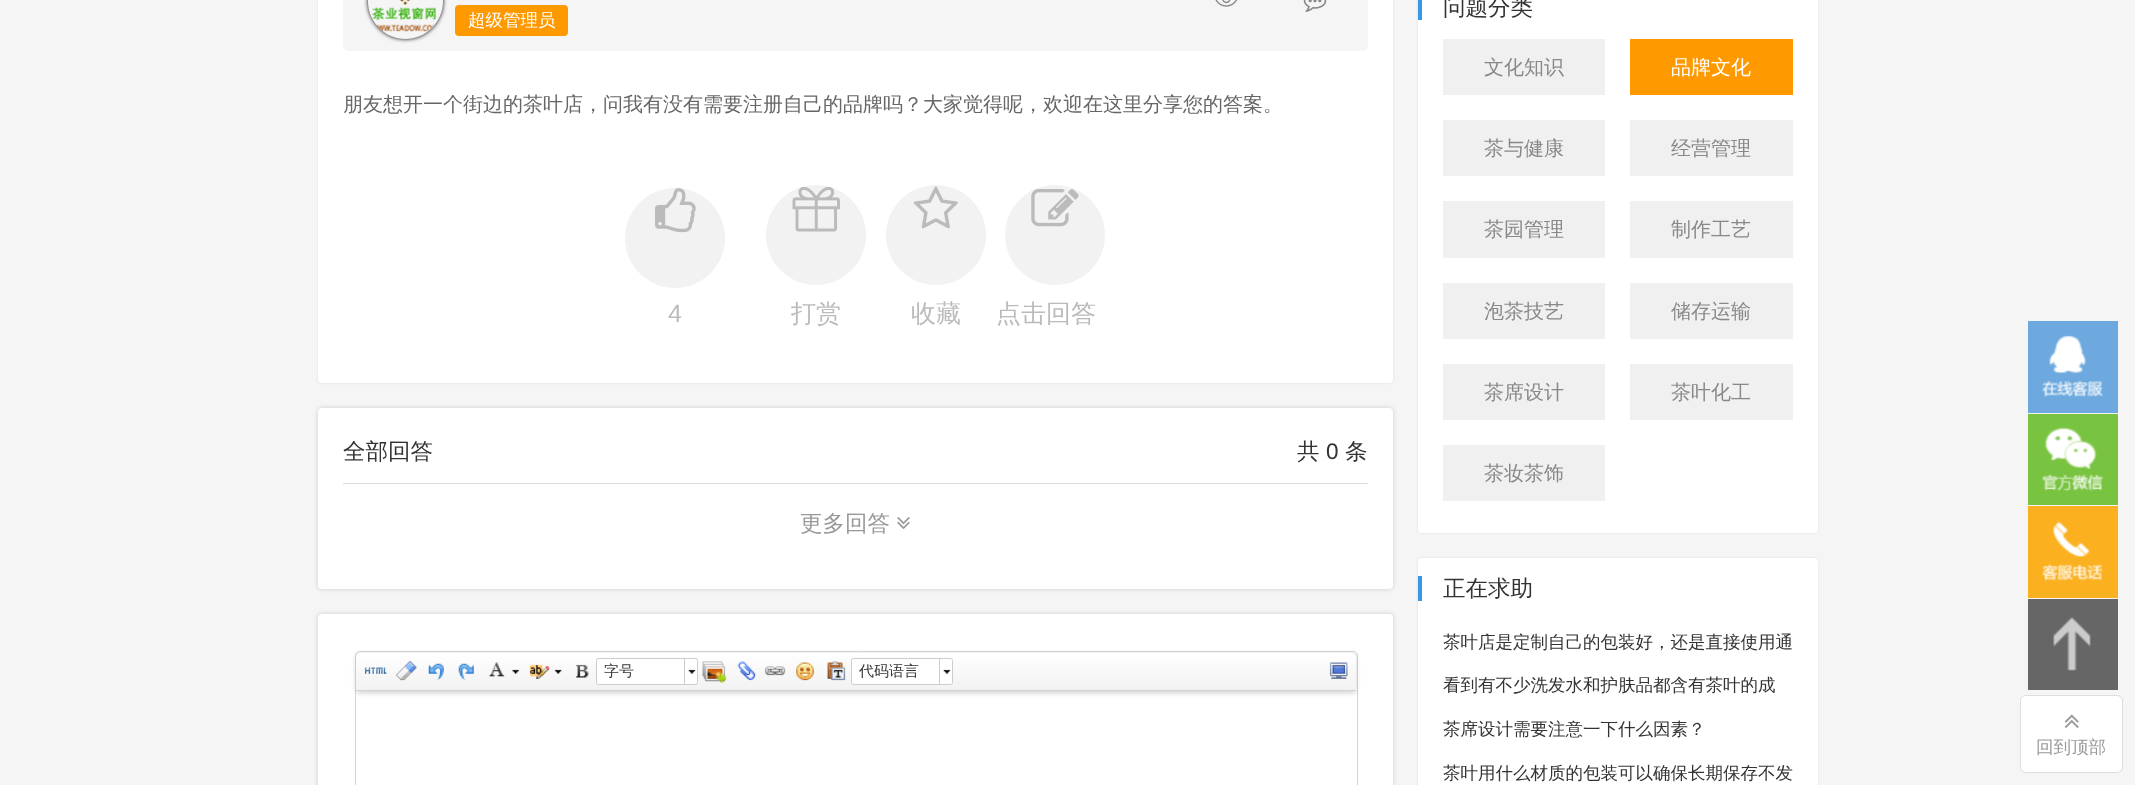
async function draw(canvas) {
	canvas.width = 2135;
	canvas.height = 785;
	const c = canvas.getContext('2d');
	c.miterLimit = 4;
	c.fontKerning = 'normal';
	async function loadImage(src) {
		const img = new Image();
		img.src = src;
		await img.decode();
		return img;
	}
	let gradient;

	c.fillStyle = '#f5f5f5';
	c.fillRect(0, 0, 2135, 785);
	c.fillStyle = '#ddd';
	c.filter = 'blur(1px)';
	c.beginPath();
	c.roundRect(318, -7, 1075, 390, 4);
	c.fill();
	c.filter = 'none';
	c.fillStyle = '#fff';
	c.beginPath();
	c.roundRect(318, -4, 1075, 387, 4);
	c.fill();
	c.fillStyle = '#f5f5f5';
	c.beginPath();
	c.roundRect(343, -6, 1025, 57, 6);
	c.fill();
	c.drawImage(await loadImage('img1.png'), 1215, 0, 22, 7);
	c.drawImage(await loadImage('img2.png'), 1303, 0, 24, 12);
	c.save();
	c.beginPath();
	c.moveTo(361, 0);
	c.lineTo(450, 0);
	c.lineTo(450, 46);
	c.lineTo(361, 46);
	c.closePath();
	c.moveTo(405.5, -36);
	c.bezierCurveTo(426, -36, 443, -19, 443, 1.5);
	c.bezierCurveTo(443, 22, 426, 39, 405.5, 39);
	c.bezierCurveTo(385, 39, 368, 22, 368, 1.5);
	c.bezierCurveTo(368, -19, 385, -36, 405.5, -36);
	c.closePath();
	c.clip('evenodd');
	c.fillStyle = '#000';
	c.filter = 'blur(2px)';
	c.beginPath();
	c.roundRect(368, -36, 75, 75, 37.5);
	c.fill();
	c.filter = 'none';
	c.restore();
	c.drawImage(await loadImage('img3.png'), 372, 0, 65, 32);
	c.fillStyle = '#f90';
	c.beginPath();
	c.roundRect(455, 5, 113, 31, 4);
	c.fill();
	c.font = '500 17.5px WenQuanYi Zen Hei';
	c.fillStyle = '#fff';
	c.fillText('超级管理员', 468, 26);
	c.font = '500 20px WenQuanYi Zen Hei';
	c.fillStyle = '#666';
	c.fillText('朋友想开一个街边的茶叶店，问我有没有需要注册自己的品牌吗？大家觉得呢，欢迎在这里分享您的答案。', 343, 111);
	c.fillStyle = '#f2f2f2';
	c.beginPath();
	c.arc(675, 238, 50, 0, 2 * Math.PI);
	c.fill();
	c.drawImage(await loadImage('img4.png'), 655, 188, 41, 45);
	c.font = '25px Liberation Sans';
	c.fillStyle = '#bbb';
	c.fillText('4', 668, 322);
	c.fillStyle = '#f2f2f2';
	c.beginPath();
	c.arc(816, 235, 50, 0, 2 * Math.PI);
	c.fill();
	c.drawImage(await loadImage('img5.png'), 792, 187, 48, 45);
	c.font = '500 25px WenQuanYi Zen Hei';
	c.fillStyle = '#bbb';
	c.fillText('打赏', 791, 322);
	c.fillStyle = '#f2f2f2';
	c.beginPath();
	c.arc(936, 235, 50, 0, 2 * Math.PI);
	c.fill();
	c.drawImage(await loadImage('img6.png'), 913, 186, 45, 43);
	c.fillStyle = '#bbb';
	c.fillText('收藏', 911, 322);
	c.fillStyle = '#f2f2f2';
	c.beginPath();
	c.arc(1055, 235, 50, 0, 2 * Math.PI);
	c.fill();
	c.drawImage(await loadImage('img7.png'), 1031, 189, 48, 38);
	c.fillStyle = '#bbb';
	c.fillText('点击回答', 996, 322);
	c.fillStyle = '#ccc';
	c.filter = 'blur(2px)';
	c.beginPath();
	c.roundRect(318, 408, 1075, 181, 4);
	c.fill();
	c.filter = 'none';
	c.fillStyle = '#fff';
	c.beginPath();
	c.roundRect(318, 408, 1075, 181, 4);
	c.fill();
	c.fillStyle = '#ddd';
	c.fillRect(343, 483, 1025, 1);
	c.font = '500 22.5px WenQuanYi Zen Hei';
	c.fillStyle = '#333';
	c.fillText('全部回答', 343, 459);
	c.fillText('共', 1297, 459);
	c.font = '22.5px Liberation Sans';
	c.fillText('0', 1326, 459);
	c.font = '500 22.5px WenQuanYi Zen Hei';
	c.fillText('条', 1345, 459);
	c.fillStyle = '#999';
	c.fillText('更多回答', 800, 531);
	c.drawImage(await loadImage('img8.png'), 897, 517, 13, 12);
	c.fillStyle = '#ccc';
	c.filter = 'blur(2px)';
	c.beginPath();
	c.roundRect(318, 614, 1075, 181, 4);
	c.fill();
	c.filter = 'none';
	c.fillStyle = '#fff';
	c.beginPath();
	c.roundRect(318, 614, 1075, 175, 4);
	c.fill();
	c.beginPath();
	c.roundRect(355.5, 651.5, 1002, 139, 4.5);
	c.strokeStyle = '#d4d4d4';
	c.stroke();
	c.fillStyle = '#cccccc99';
	c.filter = 'blur(2.5px)';
	c.beginPath();
	c.roundRect(356, 654, 1000, 39, 2.5);
	c.fill();
	c.filter = 'none';
	c.fillStyle = '#00000012';
	c.filter = 'blur(2.5px)';
	c.beginPath();
	c.roundRect(356, 654, 1000, 39, 5);
	c.fill();
	c.filter = 'none';
	gradient = c.createLinearGradient(856, 653, 856, 690);
	gradient.addColorStop(0, '#fff');
	gradient.addColorStop(1, '#f2f2f2');
	c.fillStyle = gradient;
	c.beginPath();
	c.roundRect(356, 653, 1000, 37, [5, 5, 0, 0]);
	c.fill();
	c.fillStyle = '#d4d4d4';
	c.fillRect(356, 690, 1000, 1);
	c.drawImage(await loadImage('img9.png'), 364, 667, 23, 7);
	c.drawImage(await loadImage('img10.png'), 396, 661, 21, 20);
	c.drawImage(await loadImage('img11.png'), 428, 663, 16, 18);
	c.drawImage(await loadImage('img12.png'), 458, 663, 16, 18);
	c.drawImage(await loadImage('img13.png'), 488, 662, 17, 15);
	c.drawImage(await loadImage('img14.png'), 512, 669, 7, 5);
	c.drawImage(await loadImage('img15.png'), 529, 664, 21, 15);
	c.drawImage(await loadImage('img16.png'), 554, 669, 8, 5);
	c.drawImage(await loadImage('img17.png'), 576, 664, 13, 14);
	c.fillStyle = '#fff';
	c.beginPath();
	c.roundRect(596.5, 658.5, 101, 26, 2);
	c.fill();
	c.strokeStyle = '#ccc';
	c.stroke();
	c.font = '500 15px WenQuanYi Zen Hei';
	c.fillStyle = '#333';
	c.fillText('字号', 604, 676);
	c.drawImage(await loadImage('img18.png'), 688, 669, 8, 5);
	c.fillStyle = '#ccc';
	c.fillRect(684, 659, 1, 25);
	c.drawImage(await loadImage('img19.png'), 702, 661, 25, 22);
	c.drawImage(await loadImage('img20.png'), 737, 661, 19, 20);
	c.drawImage(await loadImage('img21.png'), 764, 666, 22, 10);
	c.drawImage(await loadImage('img22.png'), 796, 662, 18, 19);
	c.drawImage(await loadImage('img23.png'), 827, 661, 19, 20);
	c.fillStyle = '#fff';
	c.beginPath();
	c.roundRect(851.5, 658.5, 101, 26, 2);
	c.fill();
	c.stroke();
	c.fillStyle = '#333';
	c.fillText('代码语言', 859, 676);
	c.drawImage(await loadImage('img18.png'), 943, 669, 8, 5);
	c.fillStyle = '#ccc';
	c.fillRect(939, 659, 1, 25);
	c.drawImage(await loadImage('img24.png'), 1329, 662, 19, 17);
	c.fillStyle = '#ddd';
	c.filter = 'blur(1px)';
	c.beginPath();
	c.roundRect(1418, -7, 400, 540, 4);
	c.fill();
	c.filter = 'none';
	c.fillStyle = '#fff';
	c.beginPath();
	c.roundRect(1418, -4, 400, 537, 4);
	c.fill();
	c.fillStyle = '#3499e7';
	c.fillRect(1418, 0, 4, 20);
	c.font = '500 22.5px WenQuanYi Zen Hei';
	c.fillStyle = '#333';
	c.fillText('问题分类', 1443, 15);
	c.fillStyle = '#f0f0f0';
	c.fillRect(1443, 39, 162, 56);
	c.font = '500 20px WenQuanYi Zen Hei';
	c.fillStyle = '#888';
	c.fillText('文化知识', 1484, 74);
	c.fillStyle = '#f90';
	c.fillRect(1630, 39, 163, 56);
	c.fillStyle = '#fff';
	c.fillText('品牌文化', 1671, 74);
	c.fillStyle = '#f0f0f0';
	c.fillRect(1443, 120, 162, 56);
	c.fillStyle = '#888';
	c.fillText('茶与健康', 1484, 155);
	c.fillStyle = '#f0f0f0';
	c.fillRect(1630, 120, 163, 56);
	c.fillStyle = '#888';
	c.fillText('经营管理', 1671, 155);
	c.fillStyle = '#f0f0f0';
	c.fillRect(1443, 201, 162, 57);
	c.fillStyle = '#888';
	c.fillText('茶园管理', 1484, 236);
	c.fillStyle = '#f0f0f0';
	c.fillRect(1630, 201, 163, 57);
	c.fillStyle = '#888';
	c.fillText('制作工艺', 1671, 236);
	c.fillStyle = '#f0f0f0';
	c.fillRect(1443, 283, 162, 56);
	c.fillStyle = '#888';
	c.fillText('泡茶技艺', 1484, 318);
	c.fillStyle = '#f0f0f0';
	c.fillRect(1630, 283, 163, 56);
	c.fillStyle = '#888';
	c.fillText('储存运输', 1671, 318);
	c.fillStyle = '#f0f0f0';
	c.fillRect(1443, 364, 162, 56);
	c.fillStyle = '#888';
	c.fillText('茶席设计', 1484, 399);
	c.fillStyle = '#f0f0f0';
	c.fillRect(1630, 364, 163, 56);
	c.fillStyle = '#888';
	c.fillText('茶叶化工', 1671, 399);
	c.fillStyle = '#f0f0f0';
	c.fillRect(1443, 445, 162, 56);
	c.fillStyle = '#888';
	c.fillText('茶妆茶饰', 1484, 480);
	c.fillStyle = '#ddd';
	c.filter = 'blur(1px)';
	c.beginPath();
	c.roundRect(1418, 558, 400, 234, 4);
	c.fill();
	c.filter = 'none';
	c.fillStyle = '#fff';
	c.beginPath();
	c.roundRect(1418, 558, 400, 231, 4);
	c.fill();
	c.fillStyle = '#3499e7';
	c.fillRect(1418, 576, 4, 25);
	c.font = '500 22.5px WenQuanYi Zen Hei';
	c.fillStyle = '#333';
	c.fillText('正在求助', 1443, 596);
	c.font = '500 17.5px WenQuanYi Zen Hei';
	for (const [text, x, y] of [
		['茶叶店是定制自己的包装好，还是直接使用通', 1443, 648],
		['看到有不少洗发水和护肤品都含有茶叶的成', 1443, 691],
		['茶席设计需要注意一下什么因素？', 1443, 735],
		['茶叶用什么材质的包装可以确保长期保存不发', 1443, 779],
	]) {
		c.fillText(text, x, y);
	}
	c.fillStyle = '#6da9de';
	c.fillRect(2028, 321, 90, 92);
	c.drawImage(await loadImage('img25.png'), 2042, 335, 61, 62);
	c.fillStyle = '#78c340';
	c.fillRect(2028, 414, 90, 91);
	c.drawImage(await loadImage('img26.png'), 2042, 427, 62, 64);
	c.fillStyle = '#fbb01f';
	c.fillRect(2028, 506, 90, 92);
	c.drawImage(await loadImage('img27.png'), 2042, 522, 61, 59);
	c.fillStyle = '#666';
	c.fillRect(2028, 599, 90, 91);
	c.drawImage(await loadImage('img28.png'), 2053, 617, 38, 54);
	c.fillStyle = '#fff';
	c.beginPath();
	c.roundRect(2020.5, 695.5, 102, 77, 5.5);
	c.fill();
	c.strokeStyle = '#ddd';
	c.stroke();
	c.drawImage(await loadImage('img29.png'), 2064, 714, 15, 14);
	c.fillStyle = '#999';
	c.fillText('回到顶部', 2036, 753);
}

draw(document.querySelector('canvas'));
